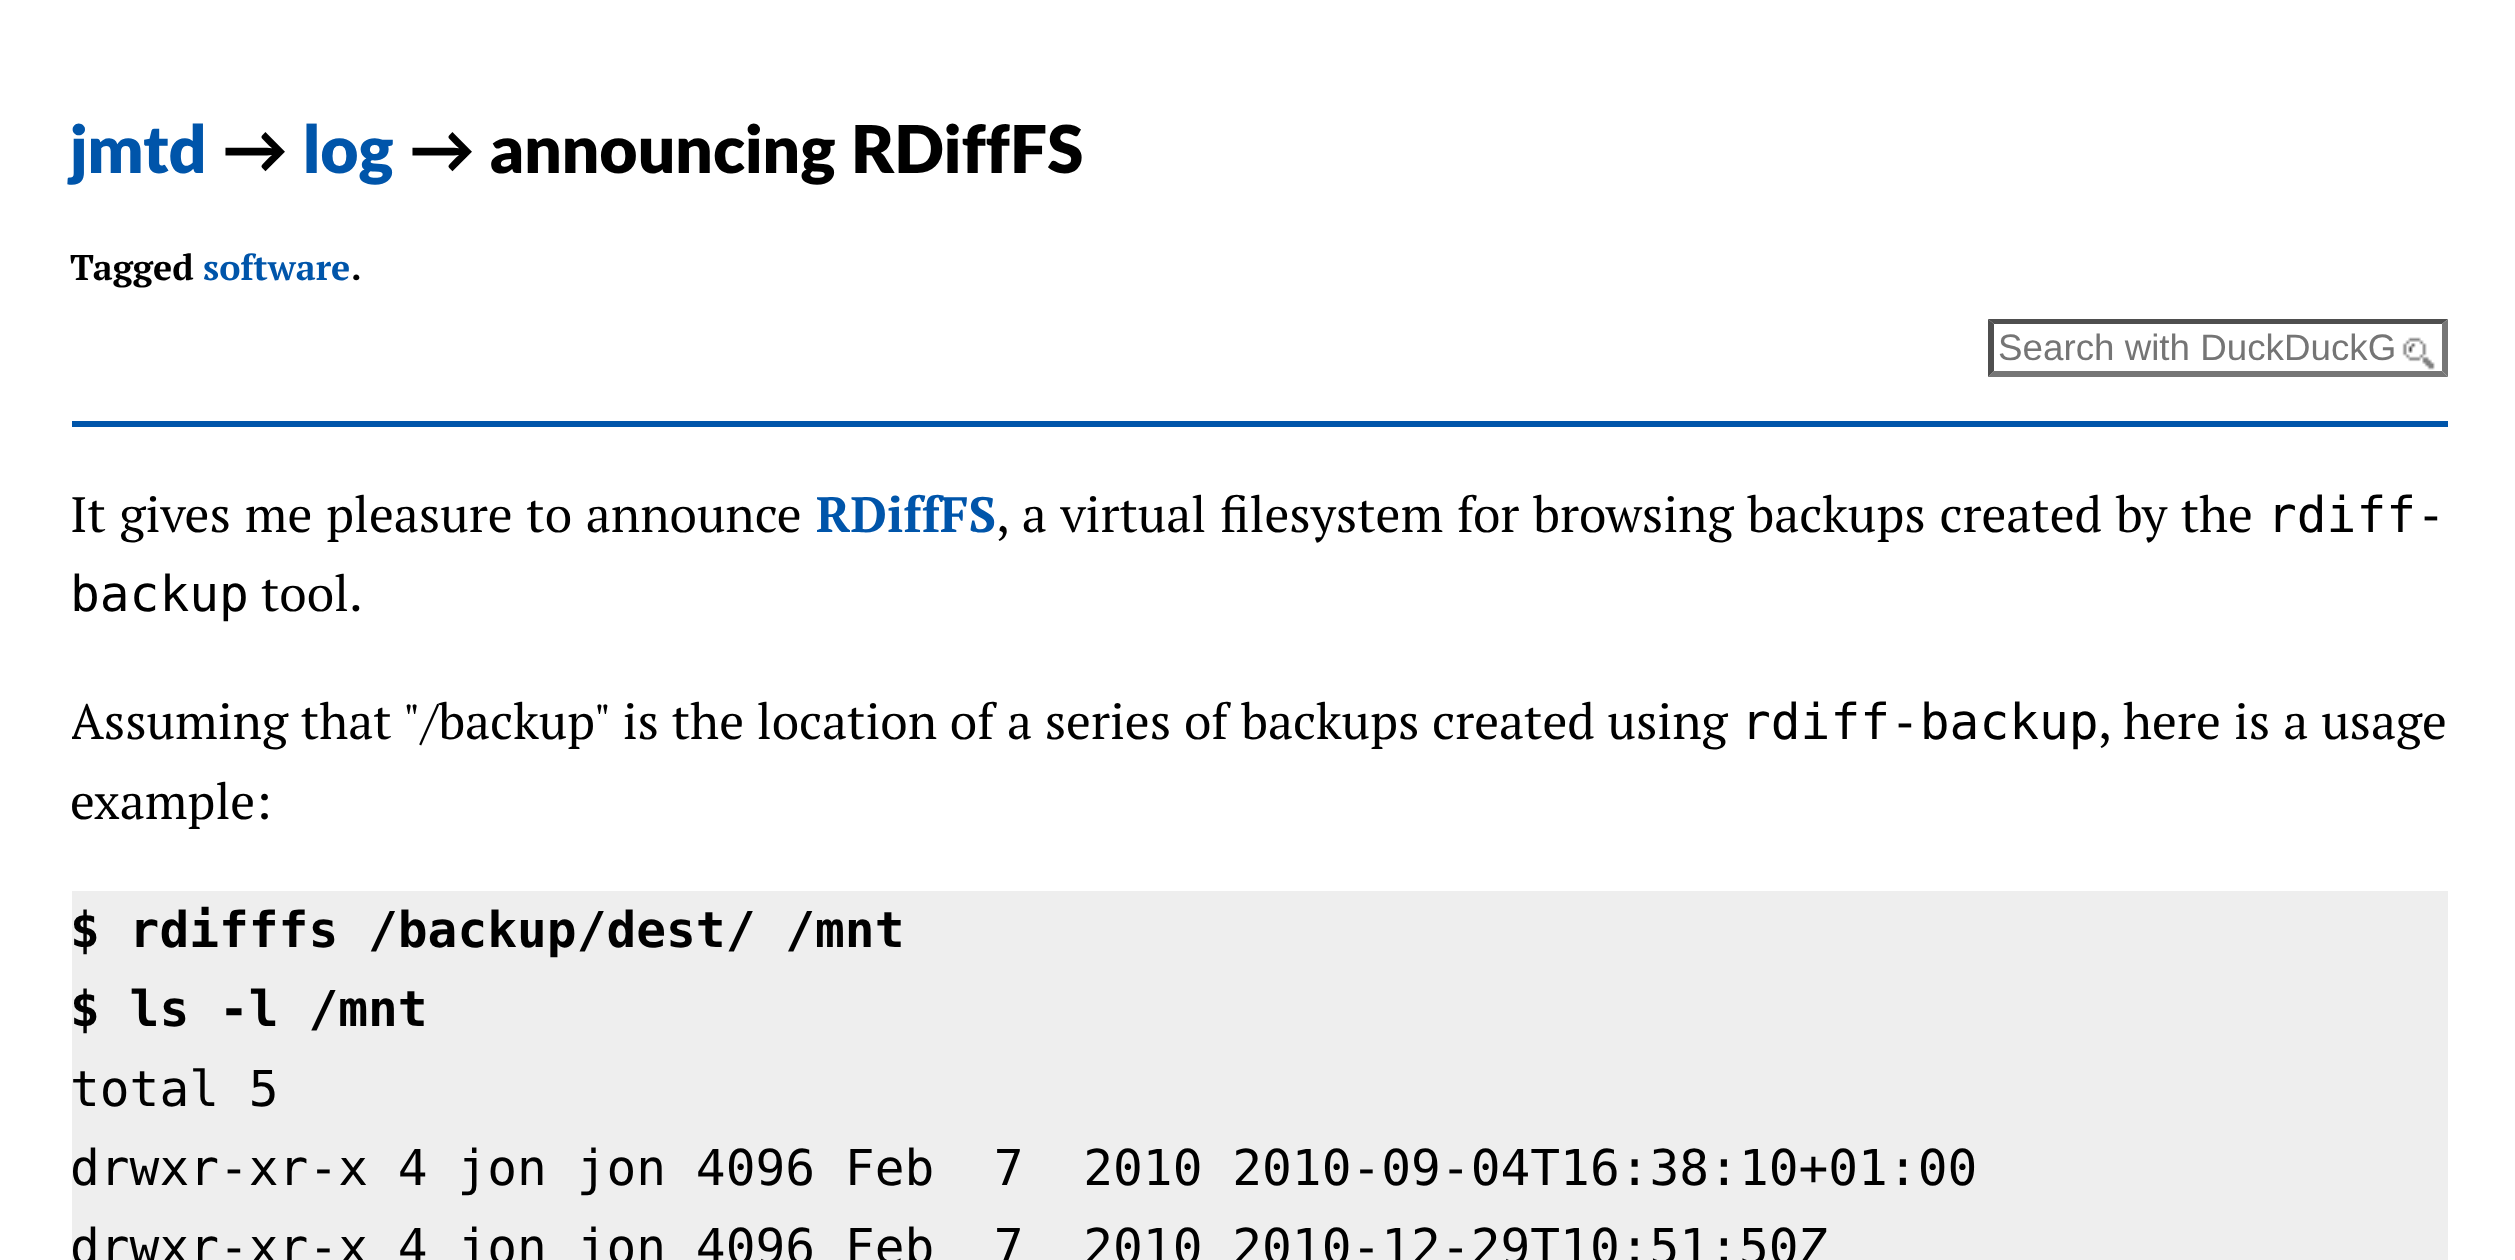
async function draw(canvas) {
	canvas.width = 2515;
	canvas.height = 1260;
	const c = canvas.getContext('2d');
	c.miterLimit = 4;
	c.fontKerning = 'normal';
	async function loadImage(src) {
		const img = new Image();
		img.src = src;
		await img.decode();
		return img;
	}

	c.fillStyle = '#fff';
	c.fillRect(0, 0, 2515, 1260);
	c.fillStyle = '#05a';
	c.fillRect(72, 421, 2376, 6);
	c.font = '900 66px Lato';
	c.fillText('jmtd', 70, 173);
	c.font = '900 66px "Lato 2"';
	c.fillStyle = '#000';
	c.fillText('→', 222, 173);
	c.font = '900 66px Lato';
	c.fillStyle = '#05a';
	c.fillText('log', 303, 173);
	c.font = '900 66px "Lato 2"';
	c.fillStyle = '#000';
	c.fillText('→', 409, 173);
	c.font = '900 66px Lato';
	c.fillText('announcing RDiffFS', 490, 173);
	c.font = 'bold 35.75px PT Serif';
	c.fillText('Tagged', 70, 280);
	c.fillStyle = '#05a';
	c.fillText('software', 203, 280);
	c.fillStyle = '#000';
	c.fillText('.', 351, 280);
	c.drawImage(await loadImage('img1.png'), 2402, 337, 33, 33);
	c.fillStyle = '#4f4f4f';
	c.beginPath();
	c.moveTo(1988, 319);
	c.lineTo(2448, 319);
	c.lineTo(2442, 324);
	c.lineTo(1994, 324);
	c.closePath();
	c.fill();
	c.fillStyle = '#767676';
	c.beginPath();
	c.moveTo(2448, 319);
	c.lineTo(2448, 377);
	c.lineTo(2442, 371);
	c.lineTo(2442, 324);
	c.closePath();
	c.fill();
	c.beginPath();
	c.moveTo(2448, 377);
	c.lineTo(1988, 377);
	c.lineTo(1994, 371);
	c.lineTo(2442, 371);
	c.closePath();
	c.fill();
	c.fillStyle = '#4f4f4f';
	c.beginPath();
	c.moveTo(1988, 377);
	c.lineTo(1988, 319);
	c.lineTo(1994, 324);
	c.lineTo(1994, 371);
	c.closePath();
	c.fill();
	c.font = '36.75px Liberation Sans';
	c.fillStyle = '#757575';
	c.fillText('Search with DuckDuckG', 1998, 360);
	c.wordSpacing = '1.75px';
	c.font = '49.5px PT Serif';
	c.fillStyle = '#000';
	c.fillText('It gives me pleasure to announce', 70, 532);
	c.wordSpacing = '0px';
	c.font = 'bold 49.5px PT Serif';
	c.fillStyle = '#05a';
	c.fillText('RDiffFS', 816, 532);
	c.wordSpacing = '1.75px';
	c.font = '49.5px PT Serif';
	c.fillStyle = '#000';
	c.fillText(', a virtual filesystem for browsing backups created by the', 996, 532);
	c.wordSpacing = '0px';
	c.font = '49.5px DejaVu Sans Mono';
	c.fillText('rdiff-', 2267, 532);
	c.fillText('backup', 70, 611);
	c.font = '49.5px PT Serif';
	c.fillText('tool.', 261, 611);
	c.save();
	c.beginPath();
	c.rect(72, 426, 2376, 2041);
	c.clip();
	c.wordSpacing = '0.75px';
	c.fillText('Assuming that "/backup" is the location of a series of backups created using', 70, 739);
	c.restore();
	c.font = '49.5px DejaVu Sans Mono';
	c.fillText('rdiff-backup', 1741, 739);
	c.wordSpacing = '1px';
	c.font = '49.5px PT Serif';
	c.fillText(', here is a usage', 2098, 739);
	c.wordSpacing = '0px';
	c.fillText('example:', 70, 819);
	c.fillStyle = '#eee';
	c.fillRect(72, 891, 2376, 369);
	c.font = 'bold 49.5px DejaVu Sans Mono';
	c.fillStyle = '#000';
	c.fillText('$ rdifffs /backup/dest/ /mnt', 70, 947);
	c.fillText('$ ls -l /mnt', 70, 1026);
	c.font = '49.5px DejaVu Sans Mono';
	for (const [text, x, y] of [
		['total 5', 70, 1106],
		['drwxr-xr-x 4 jon jon 4096 Feb  7  2010 2010-09-04T16:38:10+01:00', 70, 1185],
		['drwxr-xr-x 4 jon jon 4096 Feb  7  2010 2010-12-29T10:51:50Z', 70, 1264],
	]) {
		c.fillText(text, x, y);
	}
}

draw(document.querySelector('canvas'));
